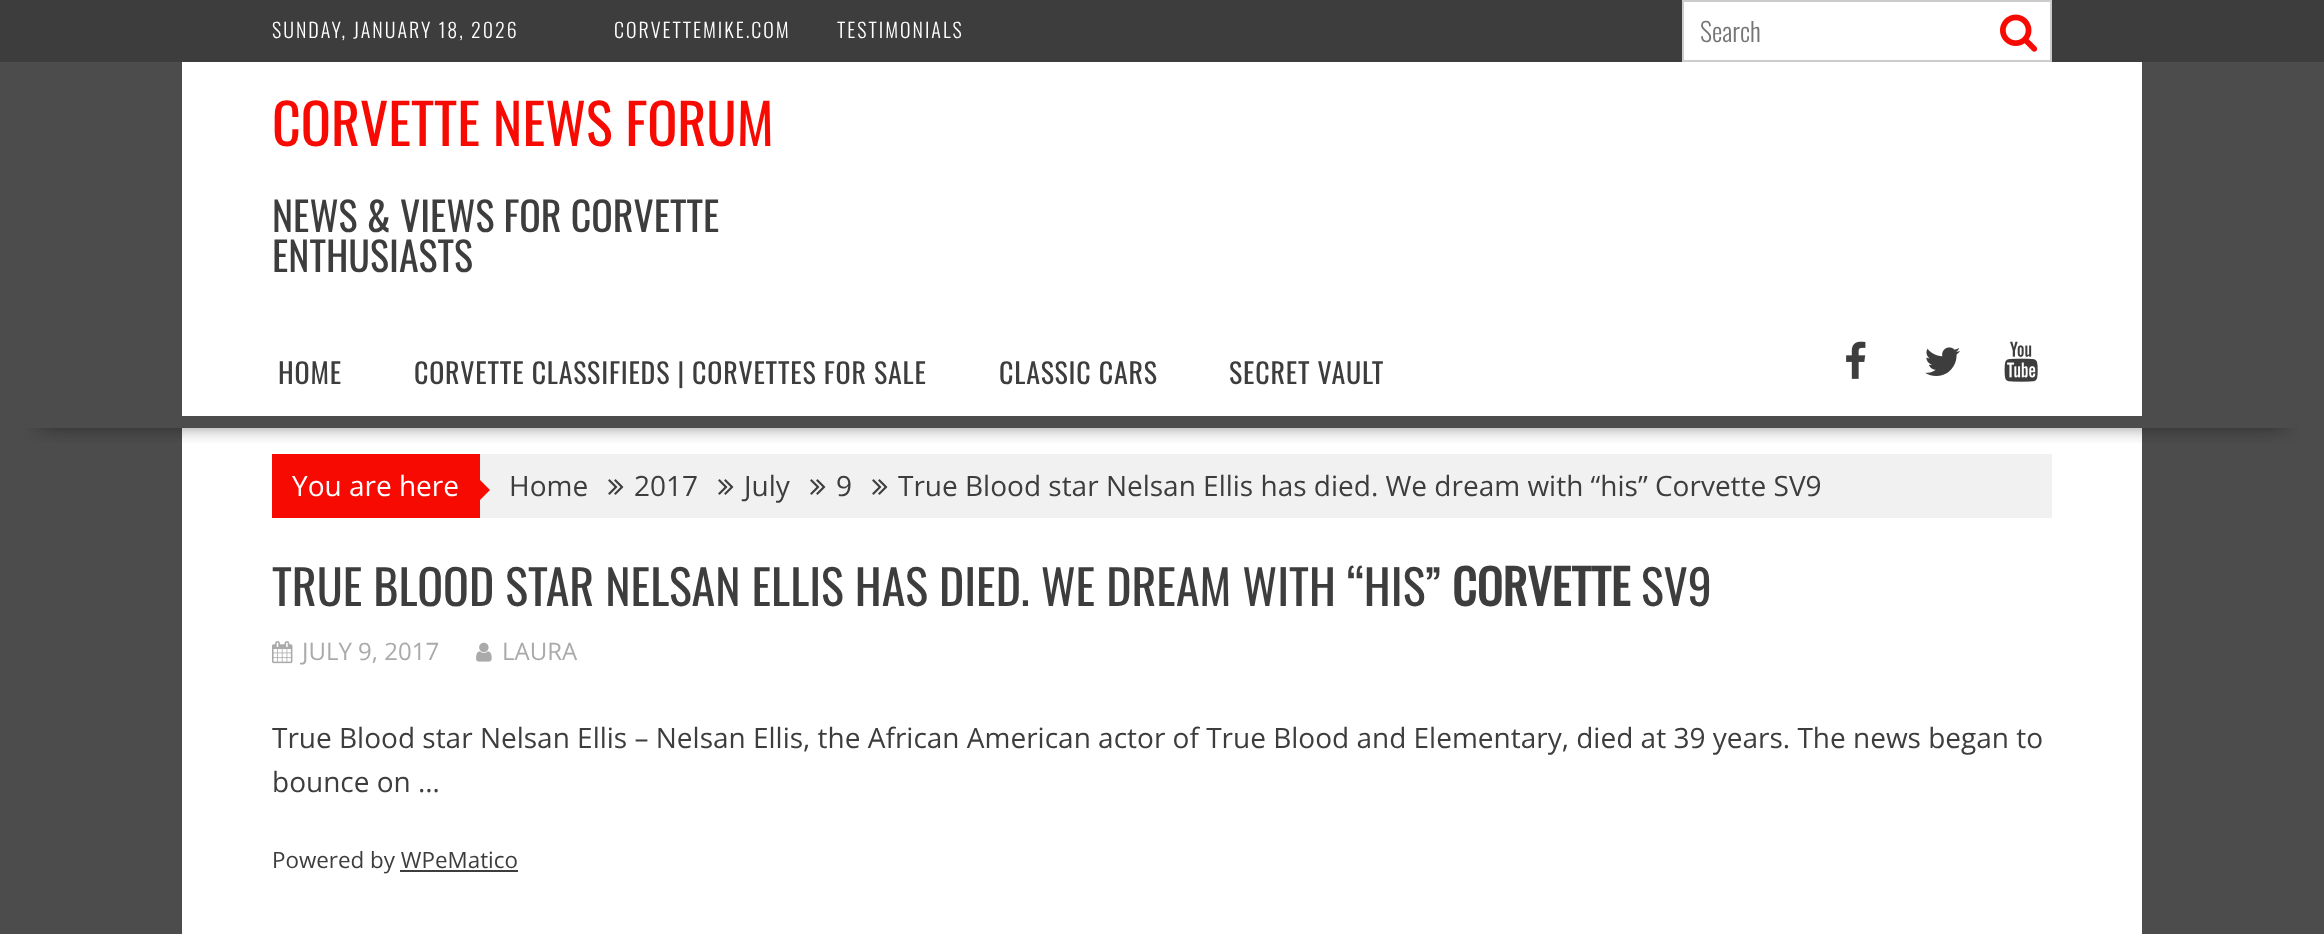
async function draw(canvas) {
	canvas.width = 2324;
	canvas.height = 934;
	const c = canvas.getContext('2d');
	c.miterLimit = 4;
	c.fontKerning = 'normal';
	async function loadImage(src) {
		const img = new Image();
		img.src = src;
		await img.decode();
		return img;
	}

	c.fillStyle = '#4c4c4c';
	c.fillRect(0, 0, 2324, 934);
	c.fillStyle = '#3d3d3d';
	c.fillRect(0, 0, 2324, 62);
	c.letterSpacing = '2px';
	c.font = '300 20px Oswald';
	c.fillStyle = '#fff';
	for (const [text, x, y] of [
		['SUNDAY, JANUARY 18, 2026', 272, 38],
		['CORVETTEMIKE.COM', 614, 38],
		['TESTIMONIALS', 837, 38],
	]) {
		c.fillText(text, x, y);
	}
	c.beginPath();
	c.rect(1683, 1, 368, 60);
	c.fill();
	c.strokeStyle = '#ccc';
	c.lineWidth = 2;
	c.stroke();
	c.letterSpacing = '0px';
	c.font = '300 26px Oswald';
	c.fillStyle = '#757575';
	c.fillText('Search', 1700, 42);
	c.drawImage(await loadImage('img1.png'), 2000, 14, 38, 38);
	c.fillStyle = '#fff';
	c.fillRect(182, 62, 1960, 262);
	c.font = '56px Oswald';
	c.fillStyle = '#f70a02';
	c.fillText('CORVETTE NEWS FORUM', 272, 146);
	c.font = '40px Oswald';
	c.fillStyle = '#3d3d3d';
	c.fillText('NEWS & VIEWS FOR CORVETTE', 272, 232);
	c.fillText('ENTHUSIASTS', 272, 272);
	c.fillStyle = '#fff';
	c.fillRect(182, 428, 1960, 506);
	c.fillStyle = '#f1f1f1';
	c.fillRect(480, 454, 1572, 64);
	c.save();
	c.beginPath();
	c.rect(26, 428, 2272, 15);
	c.clip();
	c.fillStyle = '#000000bf';
	c.filter = 'blur(11px)';
	c.beginPath();
	c.rect(40, 398, 2244, 24);
	c.fill();
	c.filter = 'none';
	c.restore();
	c.fillStyle = '#fff';
	c.fillRect(182, 324, 1960, 92);
	c.letterSpacing = '0.8px';
	c.font = '28px Oswald';
	c.fillStyle = '#3d3d3d';
	for (const [text, x, y] of [
		['HOME', 278, 384],
		['CORVETTE CLASSIFIEDS | CORVETTES FOR SALE', 414, 384],
		['CLASSIC CARS', 999, 384],
		['SECRET VAULT', 1229, 384],
	]) {
		c.fillText(text, x, y);
	}
	c.drawImage(await loadImage('img2.png'), 1846, 341, 20, 38);
	c.drawImage(await loadImage('img3.png'), 1925, 347, 35, 29);
	c.drawImage(await loadImage('img4.png'), 2004, 341, 34, 41);
	c.fillStyle = '#f70a02';
	c.fillRect(272, 454, 208, 64);
	c.letterSpacing = '0px';
	c.font = '28px Open Sans';
	c.fillStyle = '#fff';
	c.fillText('You are here', 292, 496);
	c.fillStyle = '#f70a02';
	c.beginPath();
	c.moveTo(480, 500);
	c.lineTo(480, 480);
	c.lineTo(490, 490);
	c.closePath();
	c.fill();
	c.fillStyle = '#3d3d3d';
	c.fillText('Home', 509, 496);
	c.drawImage(await loadImage('img5.png'), 608, 479, 16, 16);
	c.fillText('2017', 634, 496);
	c.drawImage(await loadImage('img5.png'), 718, 479, 16, 16);
	c.fillText('July', 744, 496);
	c.drawImage(await loadImage('img5.png'), 810, 479, 16, 16);
	c.fillText('9', 836, 496);
	c.drawImage(await loadImage('img5.png'), 872, 479, 16, 16);
	c.fillText('True Blood star Nelsan Ellis has died. We dream with “his” Corvette SV9', 898, 496);
	c.font = '48px Oswald';
	c.fillText('TRUE BLOOD STAR NELSAN ELLIS HAS DIED. WE DREAM WITH “HIS”', 272, 606);
	c.font = 'bold 48px Oswald';
	c.fillText('CORVETTE', 1452, 606);
	c.font = '48px Oswald';
	c.fillText('SV9', 1641, 606);
	c.drawImage(await loadImage('img6.png'), 272, 641, 21, 23);
	c.font = '24px Open Sans';
	c.fillStyle = '#aaa';
	c.fillText('JULY 9, 2017', 302, 660);
	c.drawImage(await loadImage('img7.png'), 476, 642, 16, 20);
	c.fillText('LAURA', 502, 660);
	c.font = '28px Open Sans';
	c.fillStyle = '#3d3d3d';
	c.fillText('True Blood star Nelsan Ellis – Nelsan Ellis, the African American actor of True Blood and Elementary, died at 39 years. The news began to', 272, 748);
	c.fillText('bounce on …', 272, 792);
	c.font = '22.4px Open Sans';
	c.fillText('Powered by WPeMatico', 272, 868);
	c.fillRect(400, 870, 118, 2);
}

draw(document.querySelector('canvas'));
